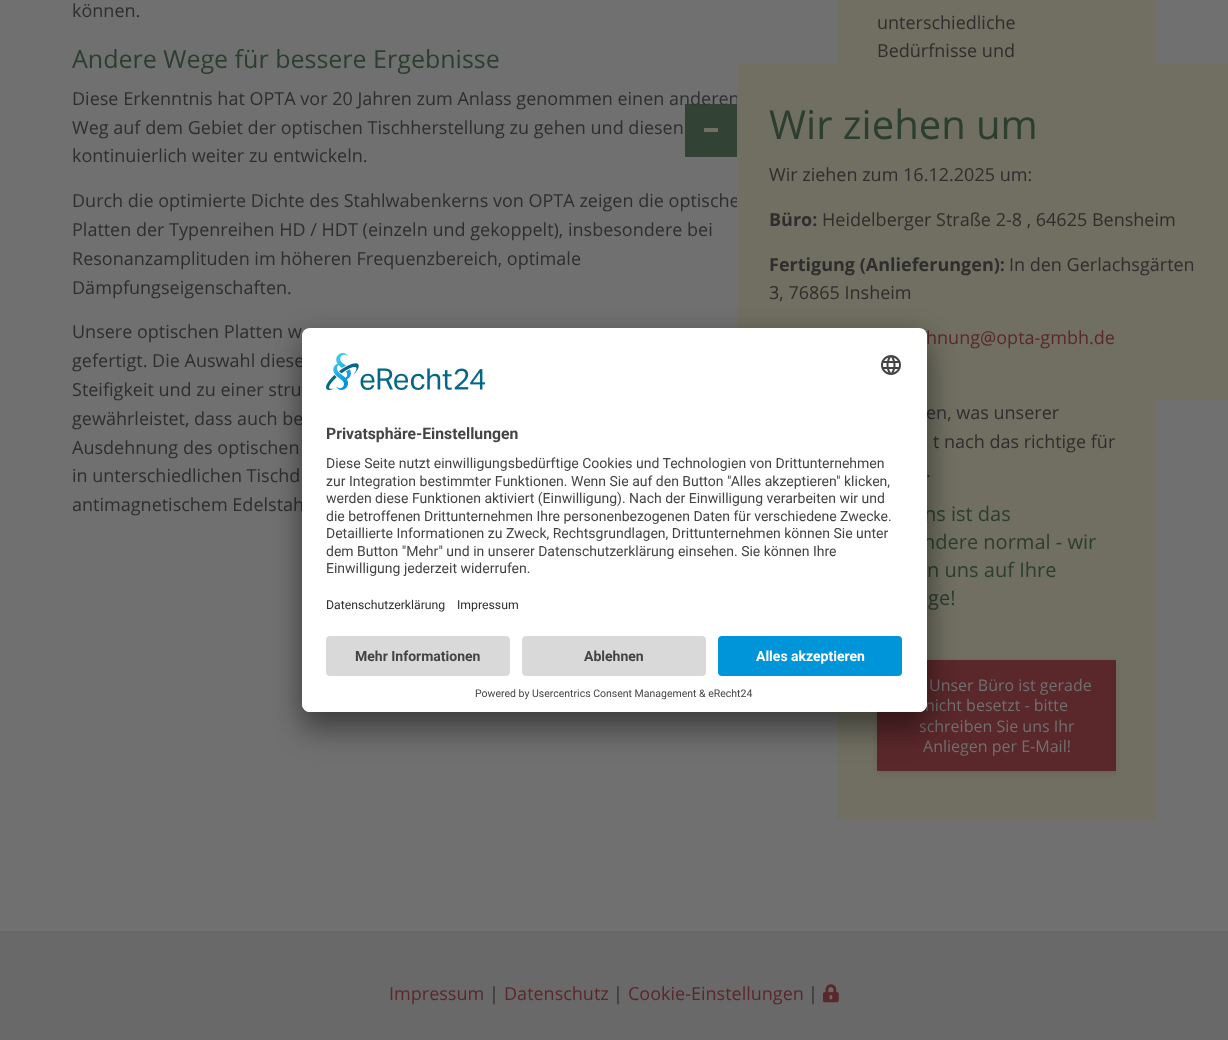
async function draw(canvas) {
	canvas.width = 1228;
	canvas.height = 1040;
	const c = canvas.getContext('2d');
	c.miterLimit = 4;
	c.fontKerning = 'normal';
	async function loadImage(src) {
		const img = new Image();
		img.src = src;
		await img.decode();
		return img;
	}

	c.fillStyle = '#707070';
	c.fillRect(0, 0, 1228, 1040);
	c.font = '18px Open Sans';
	c.fillStyle = '#2e2e2e';
	c.fillText('können.', 72, 17);
	c.font = '25px Open Sans';
	c.fillStyle = '#2b3e2f';
	c.fillText('Andere Wege für bessere Ergebnisse', 72, 68);
	c.font = '18px Open Sans';
	c.fillStyle = '#2e2e2e';
	for (const [text, x, y] of [
		['Diese Erkenntnis hat OPTA vor 20 Jahren zum Anlass genommen einen anderen', 72, 105],
		['Weg auf dem Gebiet der optischen Tischherstellung zu gehen und diesen', 72, 134],
		['kontinuierlich weiter zu entwickeln.', 72, 162],
		['Durch die optimierte Dichte des Stahlwabenkerns von OPTA zeigen die optische', 72, 207],
		['Platten der Typenreihen HD / HDT (einzeln und gekoppelt), insbesondere bei', 72, 236],
		['Resonanzamplituden im höheren Frequenzbereich, optimale', 72, 265],
		['Dämpfungseigenschaften.', 72, 294],
		['Unsere optischen Platten w', 72, 338],
		['gefertigt. Die Auswahl diese', 72, 367],
		['Steifigkeit und zu einer stru', 72, 396],
		['gewährleistet, dass auch be', 72, 425],
		['Ausdehnung des optischen', 72, 454],
		['in unterschiedlichen Tischd', 72, 482],
		['antimagnetischem Edelstah', 72, 511],
	]) {
		c.fillText(text, x, y);
	}
	c.fillStyle = '#706f61';
	c.fillRect(837, 0, 319, 819);
	c.fillStyle = '#2e2e2e';
	for (const [text, x, y] of [
		['unterschiedliche', 877, 29],
		['Bedürfnisse und', 877, 57],
		['en, was unserer', 926, 419],
		['t nach das richtige für', 933, 448],
		['.', 926, 477],
	]) {
		c.fillText(text, x, y);
	}
	c.font = '20px Open Sans';
	c.fillStyle = '#2b3e2f';
	for (const [text, x, y] of [
		['ns ist das', 924, 521],
		['ndere normal - wir', 923, 549],
		['n uns auf Ihre', 927, 577],
		['ge!', 928, 605],
	]) {
		c.fillText(text, x, y);
	}
	c.fillStyle = '#24242429';
	c.filter = 'blur(2.5px)';
	c.beginPath();
	c.rect(877, 662, 239, 111);
	c.fill();
	c.filter = 'none';
	c.fillStyle = '#5a282b';
	c.fillRect(877, 660, 239, 111);
	c.font = '16px Open Sans';
	c.fillStyle = '#707070';
	for (const [text, x, y] of [
		['Unser Büro ist gerade', 929, 691],
		['nicht besetzt - bitte', 925, 711],
		['schreiben Sie uns Ihr', 919, 732],
		['Anliegen per E-Mail!', 923, 752],
	]) {
		c.fillText(text, x, y);
	}
	for (const [x, y, w, h, color] of [
		[685, 104, 52, 53, '#2b3e2fe6'],
		[704, 128, 14, 4, '#706f61'],
		[737, 64, 491, 336, '#706f61'],
	]) {
		c.fillStyle = color;
		c.fillRect(x, y, w, h);
	}
	c.font = '40px Open Sans';
	c.fillStyle = '#2b3e2f';
	c.fillText('Wir ziehen um', 769, 139);
	c.font = '18px Open Sans';
	c.fillStyle = '#2e2e2e';
	c.fillText('Wir ziehen zum 16.12.2025 um:', 769, 181);
	c.font = 'bold 18px Open Sans';
	c.fillText('Büro:', 769, 226);
	c.font = '18px Open Sans';
	c.fillText('Heidelberger Straße 2-8 , 64625 Bensheim', 822, 226);
	c.font = 'bold 18px Open Sans';
	c.fillText('Fertigung (Anlieferungen):', 769, 271);
	c.font = '18px Open Sans';
	c.fillText('In den Gerlachsgärten', 1009, 271);
	c.fillText('3, 76865 Insheim', 769, 299);
	c.fillStyle = '#5a282b';
	c.fillText('hnung@opta-gmbh.de', 926, 344);
	c.fillStyle = '#696969';
	c.fillRect(0, 931, 1228, 109);
	c.fillStyle = '#5a282b';
	c.fillText('Impressum', 389, 1000);
	c.fillStyle = '#2e2e2e';
	c.fillText('|', 489, 1000);
	c.fillStyle = '#5a282b';
	c.fillText('Datenschutz', 504, 1000);
	c.fillStyle = '#2e2e2e';
	c.fillText('|', 613, 1000);
	c.fillStyle = '#5a282b';
	c.fillText('Cookie-Einstellungen', 628, 1000);
	c.fillStyle = '#2e2e2e';
	c.fillText('|', 808, 1000);
	c.drawImage(await loadImage('img1.png'), 823, 984, 16, 19);
	c.fillStyle = '#0000004d';
	c.filter = 'blur(14px)';
	c.beginPath();
	c.roundRect(302, 348, 625, 384, 8);
	c.fill();
	c.filter = 'none';
	c.fillStyle = '#00000038';
	c.filter = 'blur(13px)';
	c.beginPath();
	c.roundRect(302, 333, 625, 384, 8);
	c.fill();
	c.filter = 'none';
	c.fillStyle = '#fff';
	c.beginPath();
	c.roundRect(302, 328, 625, 384, 8);
	c.fill();
	c.save();
	c.beginPath();
	c.roundRect(302, 328, 625, 384, 8);
	c.clip();
	c.beginPath();
	c.roundRect(302, 328, 625, 300, [8, 8, 0, 0]);
	c.clip();
	c.fillRect(302, 329, 625, 299);
	c.restore();
	c.drawImage(await loadImage('img2.png'), 326, 353, 159, 37);
	c.drawImage(await loadImage('img3.png'), 881, 355, 20, 20);
	c.font = 'bold 15.75px Roboto';
	c.fillStyle = '#444';
	c.fillText('Privatsphäre-Einstellungen', 326, 439);
	c.font = '14px Roboto';
	for (const [text, x, y] of [
		['Diese Seite nutzt einwilligungsbedürftige Cookies und Technologien von Drittunternehmen', 326, 468],
		['zur Integration bestimmter Funktionen. Wenn Sie auf den Button "Alles akzeptieren" klicken,', 326, 486],
		['werden diese Funktionen aktiviert (Einwilligung). Nach der Einwilligung verarbeiten wir und', 326, 503],
		['die betroffenen Drittunternehmen Ihre personenbezogenen Daten für verschiedene Zwecke.', 326, 521],
		['Detaillierte Informationen zu Zweck, Rechtsgrundlagen, Drittunternehmen können Sie unter', 326, 538],
		['dem Button "Mehr" und in unserer Datenschutzerklärung einsehen. Sie können Ihre', 326, 556],
		['Einwilligung jederzeit widerrufen.', 326, 573],
	]) {
		c.fillText(text, x, y);
	}
	c.font = '12.25px Roboto';
	c.fillStyle = '#2e2e2e';
	c.fillText('Datenschutzerklärung', 326, 609);
	c.fillText('Impressum', 457, 609);
	c.fillStyle = '#fff';
	c.beginPath();
	c.roundRect(302, 628, 625, 84, [0, 0, 8, 8]);
	c.fill();
	c.fillStyle = '#d9d9d9';
	c.beginPath();
	c.roundRect(326, 636, 184, 40, 4);
	c.fill();
	c.font = 'bold 14px Roboto';
	c.fillStyle = '#444';
	c.fillText('Mehr Informationen', 355, 661);
	c.fillStyle = '#d9d9d9';
	c.beginPath();
	c.roundRect(522, 636, 184, 40, 4);
	c.fill();
	c.fillStyle = '#444';
	c.fillText('Ablehnen', 584, 661);
	c.fillStyle = '#0094d8';
	c.beginPath();
	c.roundRect(718, 636, 184, 40, 4);
	c.fill();
	c.fillStyle = '#fff';
	c.fillText('Alles akzeptieren', 756, 661);
	c.font = '10.5px Roboto';
	c.fillStyle = '#444';
	c.fillText('Powered by Usercentrics Consent Management & eRecht24', 475, 697);
}

draw(document.querySelector('canvas'));
